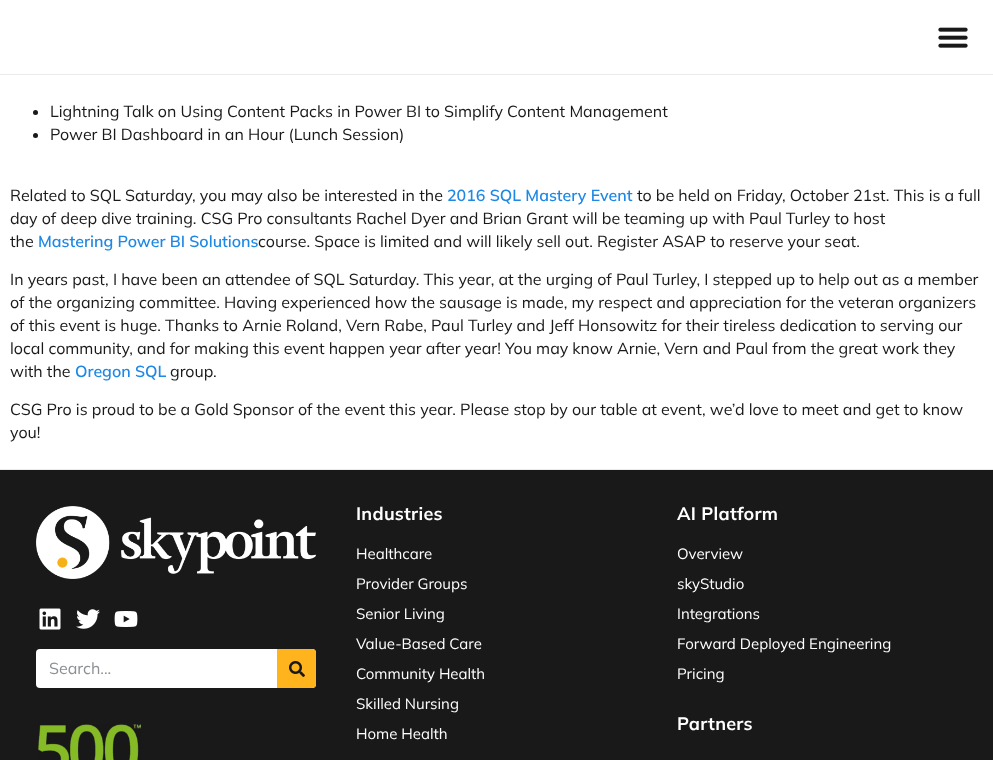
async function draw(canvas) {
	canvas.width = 993;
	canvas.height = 760;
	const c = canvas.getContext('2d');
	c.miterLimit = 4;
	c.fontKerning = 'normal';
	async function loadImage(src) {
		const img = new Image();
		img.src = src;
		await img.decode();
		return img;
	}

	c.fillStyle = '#fff';
	c.fillRect(0, 0, 993, 760);
	c.fillStyle = '#eaeaea';
	c.fillRect(0, 74, 993, 1);
	c.drawImage(await loadImage('img1.png'), 938, 27, 30, 21);
	c.fillStyle = '#191919';
	c.beginPath();
	c.arc(35.5, 112.5, 2.5, 0, 2 * Math.PI);
	c.fill();
	c.font = '16px Mulish';
	c.fillText('Lightning Talk on Using Content Packs in Power BI to Simplify Content Management', 50, 117);
	c.beginPath();
	c.arc(35.5, 135.5, 2.5, 0, 2 * Math.PI);
	c.fill();
	c.fillText('Power BI Dashboard in an Hour (Lunch Session)', 50, 140);
	c.fillText('Related to SQL Saturday, you may also be interested in the', 10, 201);
	c.font = '600 16px Mulish';
	c.fillStyle = '#1e88e5';
	c.fillText('2016 SQL Mastery Event', 447, 201);
	c.font = '16px Mulish';
	c.fillStyle = '#191919';
	for (const [text, x, y] of [
		['to be held on Friday, October 21st. This is a full', 637, 201],
		['day of deep dive training. CSG Pro consultants Rachel Dyer and Brian Grant will be teaming up with Paul Turley to host', 10, 224],
		['the', 10, 247],
	]) {
		c.fillText(text, x, y);
	}
	c.font = '600 16px Mulish';
	c.fillStyle = '#1e88e5';
	c.fillText('Mastering Power BI Solutions', 38, 247);
	c.font = '16px Mulish';
	c.fillStyle = '#191919';
	for (const [text, x, y] of [
		['course. Space is limited and will likely sell out. Register ASAP to reserve your seat.', 258, 247],
		['In years past, I have been an attendee of SQL Saturday. This year, at the urging of Paul Turley, I stepped up to help out as a member', 10, 285],
		['of the organizing committee. Having experienced how the sausage is made, my respect and appreciation for the veteran organizers', 10, 308],
		['of this event is huge. Thanks to Arnie Roland, Vern Rabe, Paul Turley and Jeff Honsowitz for their tireless dedication to serving our', 10, 331],
		['local community, and for making this event happen year after year! You may know Arnie, Vern and Paul from the great work they', 10, 354],
		['with the', 10, 377],
	]) {
		c.fillText(text, x, y);
	}
	c.font = '600 16px Mulish';
	c.fillStyle = '#1e88e5';
	c.fillText('Oregon SQL', 75, 377);
	c.font = '16px Mulish';
	c.fillStyle = '#191919';
	for (const [text, x, y] of [
		['group.', 170, 377],
		['CSG Pro is proud to be a Gold Sponsor of the event this year. Please stop by our table at event, we’d love to meet and get to know', 10, 415],
		['you!', 10, 438],
	]) {
		c.fillText(text, x, y);
	}
	c.fillRect(0, 470, 993, 290);
	c.fillStyle = '#eaeaea';
	c.fillRect(0, 469, 993, 1);
	c.drawImage(await loadImage('img2.png'), 36, 506, 280, 73);
	c.drawImage(await loadImage('img3.png'), 39, 608, 22, 22);
	c.drawImage(await loadImage('img4.png'), 76, 609, 24, 20);
	c.drawImage(await loadImage('img5.png'), 114, 611, 24, 16);
	c.fillStyle = '#fff';
	c.beginPath();
	c.roundRect(36, 649, 280, 39, 4);
	c.fill();
	c.fillStyle = '#8c8f93';
	c.fillText('Search...', 49, 674);
	c.fillStyle = '#ffb31c';
	c.beginPath();
	c.roundRect(277, 649, 39, 39, [0, 4, 4, 0]);
	c.fill();
	c.drawImage(await loadImage('img6.png'), 289, 661, 16, 16);
	c.drawImage(await loadImage('img7.png'), 38, 724, 103, 36);
	c.letterSpacing = '0.25px';
	c.font = 'bold 18px Mulish';
	c.fillStyle = '#fff';
	c.fillText('Industries', 356, 520);
	c.letterSpacing = '0px';
	c.font = '15px Mulish';
	for (const [text, x, y] of [
		['Healthcare', 356, 559],
		['Provider Groups', 356, 589],
		['Senior Living', 356, 619],
		['Value-Based Care', 356, 649],
		['Community Health', 356, 679],
		['Skilled Nursing', 356, 709],
		['Home Health', 356, 739],
	]) {
		c.fillText(text, x, y);
	}
	c.letterSpacing = '0.25px';
	c.font = 'bold 18px Mulish';
	c.fillText('AI Platform', 677, 520);
	c.letterSpacing = '0px';
	c.font = '15px Mulish';
	for (const [text, x, y] of [
		['Overview', 677, 559],
		['skyStudio', 677, 589],
		['Integrations', 677, 619],
		['Forward Deployed Engineering', 677, 649],
		['Pricing', 677, 679],
	]) {
		c.fillText(text, x, y);
	}
	c.letterSpacing = '0.25px';
	c.font = 'bold 18px Mulish';
	c.fillText('Partners', 677, 730);
}

draw(document.querySelector('canvas'));
